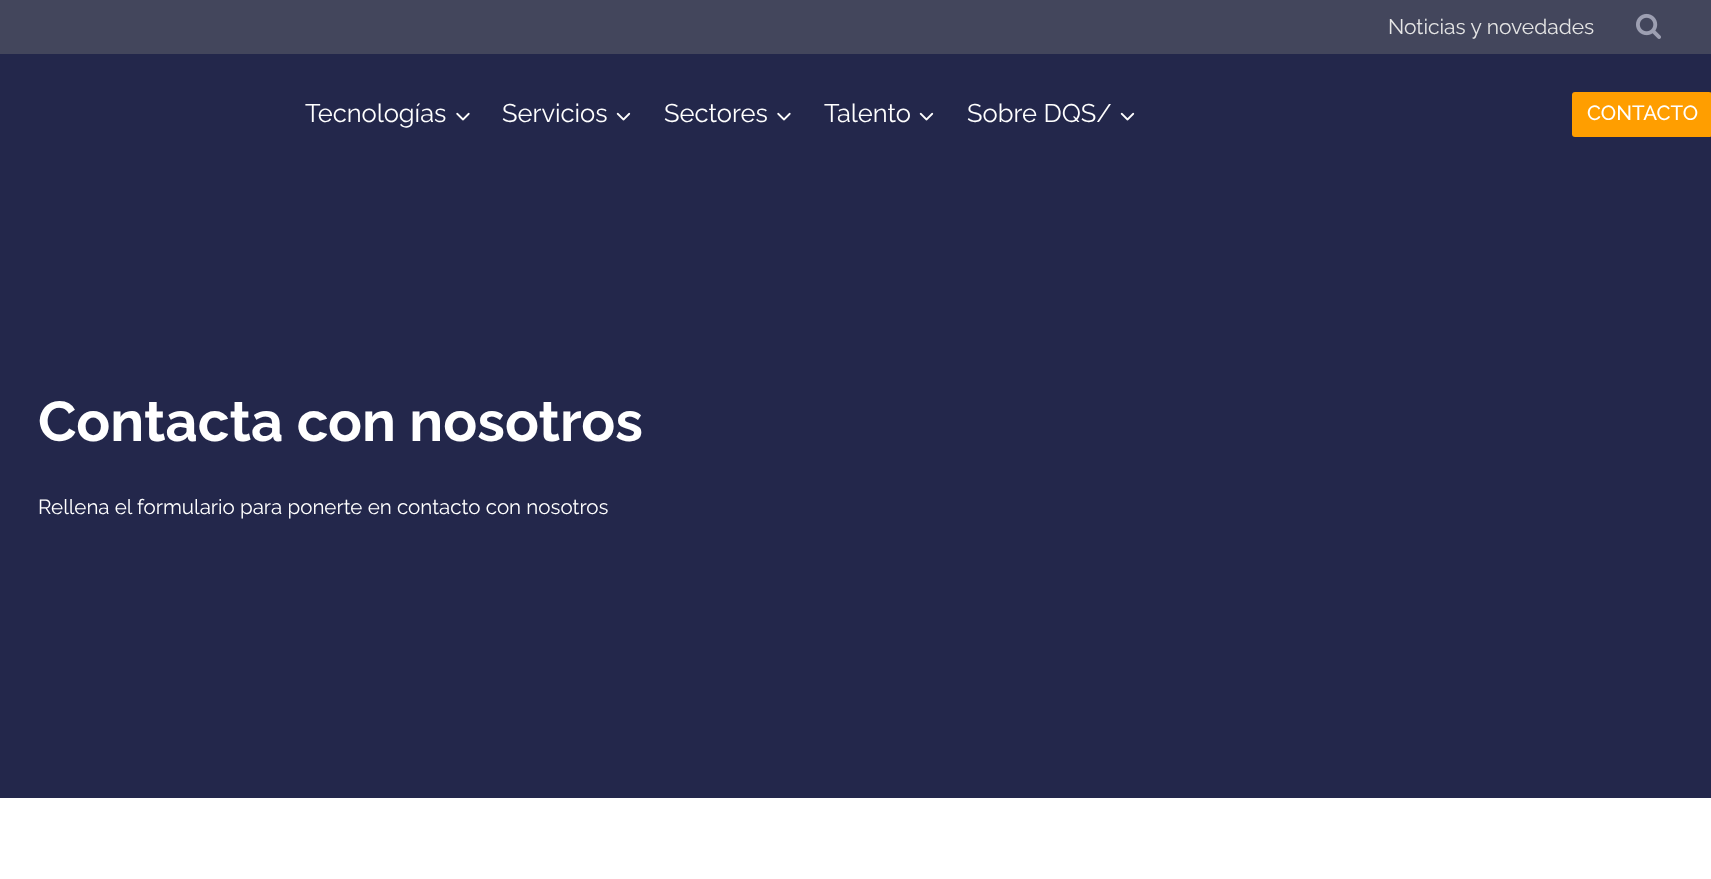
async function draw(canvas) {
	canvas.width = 1711;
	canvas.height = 879;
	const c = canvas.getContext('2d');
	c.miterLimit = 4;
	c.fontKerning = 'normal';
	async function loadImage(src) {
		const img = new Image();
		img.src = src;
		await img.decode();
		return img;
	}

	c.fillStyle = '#fff';
	c.fillRect(0, 0, 1711, 879);
	c.fillStyle = '#43465c';
	c.fillRect(0, 0, 1711, 54);
	c.font = '21px Raleway';
	c.fillStyle = '#e5e5e5';
	c.fillText('Noticias y novedades', 1388, 34);
	c.drawImage(await loadImage('img1.png'), 1636, 13, 25, 26);
	c.fillStyle = '#23274b';
	c.fillRect(0, 54, 1711, 744);
	c.font = '25.5px Raleway';
	c.fillStyle = '#fff';
	c.fillText('Tecnologías', 305, 122);
	c.drawImage(await loadImage('img2.png'), 456, 112, 14, 9);
	c.fillText('Servicios', 502, 122);
	c.drawImage(await loadImage('img3.png'), 616, 112, 15, 9);
	c.fillText('Sectores', 664, 122);
	c.drawImage(await loadImage('img2.png'), 777, 112, 14, 9);
	c.fillText('Talento', 824, 122);
	c.drawImage(await loadImage('img3.png'), 919, 112, 15, 9);
	c.fillText('Sobre DQS/', 967, 122);
	c.drawImage(await loadImage('img3.png'), 1120, 112, 15, 9);
	c.fillStyle = '#ff9e00';
	c.beginPath();
	c.roundRect(1572, 92, 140, 45, 3);
	c.fill();
	c.font = '500 20.5px Raleway';
	c.fillStyle = '#fff';
	c.fillText('CONTACTO', 1587, 120);
	c.font = 'bold 56.1px Raleway';
	c.fillText('Contacta con nosotros', 38, 441);
	c.font = '20.55px Raleway';
	c.fillText('Rellena el formulario para ponerte en contacto con nosotros', 38, 514);
}

draw(document.querySelector('canvas'));
